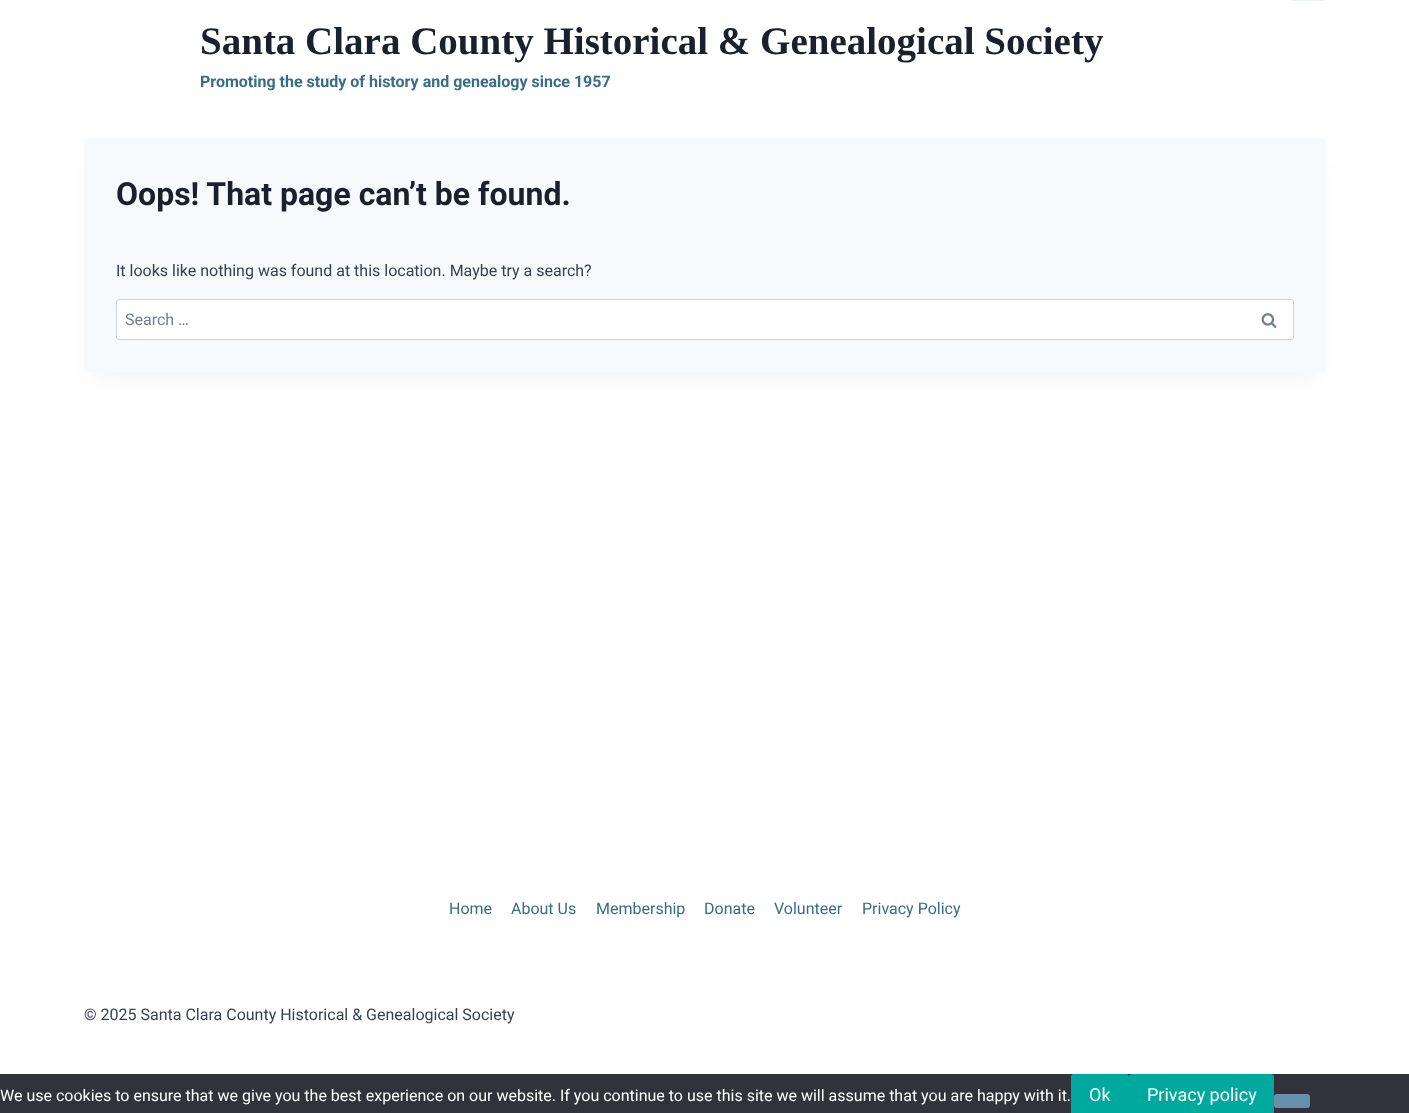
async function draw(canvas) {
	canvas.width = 1409;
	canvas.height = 1113;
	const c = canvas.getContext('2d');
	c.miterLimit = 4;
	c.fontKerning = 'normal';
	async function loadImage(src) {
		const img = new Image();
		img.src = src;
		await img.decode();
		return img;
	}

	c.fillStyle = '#fff';
	c.fillRect(0, 0, 1409, 1113);
	c.fillStyle = '#edf2f7';
	c.beginPath();
	c.roundRect(1290, -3, 36, 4, 3);
	c.fill();
	c.font = 'bold 39px Liberation Serif';
	c.fillStyle = '#1a202c';
	c.fillText('Santa Clara County Historical & Genealogical Society', 200, 54);
	c.font = 'bold 16px Roboto';
	c.fillStyle = '#386d85';
	c.fillText('Promoting the study of history and genealogy since 1957', 200, 87);
	c.fillStyle = '#0000000d';
	c.filter = 'blur(12.5px)';
	c.beginPath();
	c.rect(94, 163, 1222, 214);
	c.fill();
	c.filter = 'none';
	c.fillStyle = '#f7fafc';
	c.beginPath();
	c.roundRect(84, 138, 1242, 234, 4);
	c.fill();
	c.font = 'bold 32px Roboto';
	c.fillStyle = '#1a202c';
	c.fillText('Oops! That page can’t be found.', 116, 205);
	c.font = '16px Roboto';
	c.fillStyle = '#353f55';
	c.fillText('It looks like nothing was found at this location. Maybe try a search?', 116, 276);
	c.fillStyle = '#fff';
	c.beginPath();
	c.roundRect(116.5, 299.5, 1177, 40, 2.5);
	c.fill();
	c.strokeStyle = '#cbd5e0';
	c.stroke();
	c.fillStyle = '#718096';
	c.fillText('Search …', 125, 325);
	c.drawImage(await loadImage('img1.png'), 1261, 313, 16, 15);
	c.fillStyle = '#386d85';
	for (const [text, x, y] of [
		['Home', 449, 914],
		['About Us', 511, 914],
		['Membership', 596, 914],
		['Donate', 704, 914],
		['Volunteer', 774, 914],
		['Privacy Policy', 862, 914],
	]) {
		c.fillText(text, x, y);
	}
	c.fillStyle = '#353f55';
	c.fillText('© 2025 Santa Clara County Historical & Genealogical Society', 84, 1020);
	c.fillStyle = '#32323a';
	c.fillRect(0, 1074, 1409, 39);
	c.fillStyle = '#fff';
	c.fillText('We use cookies to ensure that we give you the best experience on our website. If you continue to use this site we will assume that you are happy with it.', 0, 1101);
	c.fillStyle = '#00a99d';
	c.beginPath();
	c.roundRect(1071, 1074, 58, 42, 3);
	c.fill();
	c.font = '18px Roboto';
	c.fillStyle = '#fff';
	c.fillText('Ok', 1089, 1101);
	c.fillStyle = '#00a99d';
	c.beginPath();
	c.roundRect(1129, 1074, 145, 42, 3);
	c.fill();
	c.fillStyle = '#fff';
	c.fillText('Privacy policy', 1147, 1101);
	c.fillStyle = '#678fae';
	c.beginPath();
	c.roundRect(1274, 1094, 36, 14, 3);
	c.fill();
}

draw(document.querySelector('canvas'));
